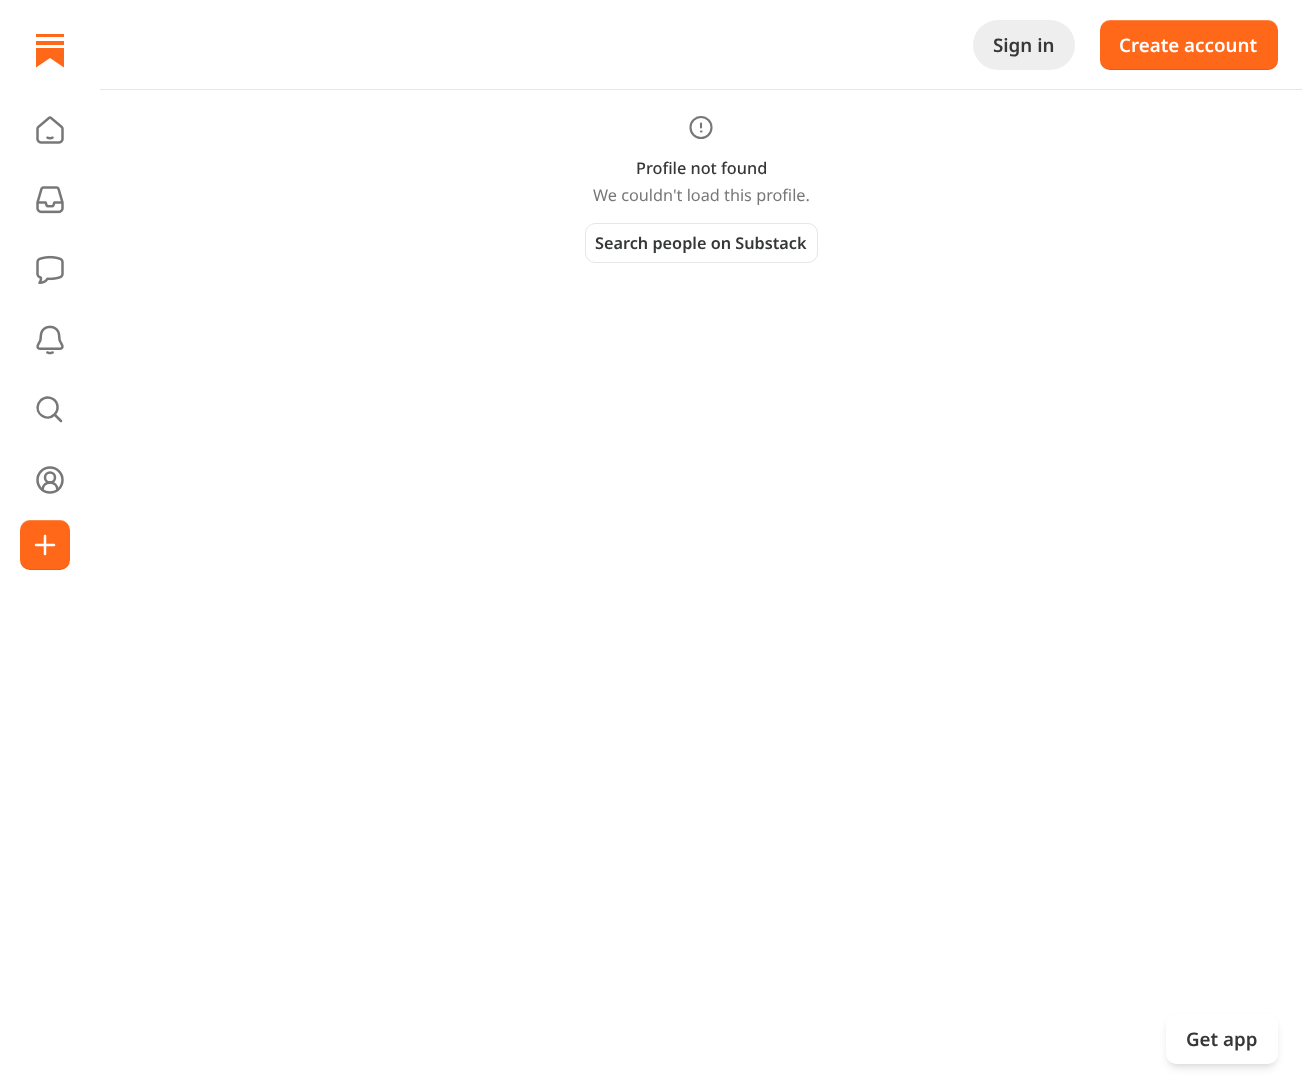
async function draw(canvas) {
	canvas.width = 1302;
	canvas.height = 1088;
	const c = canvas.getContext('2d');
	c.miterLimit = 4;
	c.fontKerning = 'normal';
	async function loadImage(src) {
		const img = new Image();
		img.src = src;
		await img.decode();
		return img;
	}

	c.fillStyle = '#fff';
	c.fillRect(0, 0, 1302, 1088);
	c.fillStyle = '#ff6719';
	c.fillRect(36, 34, 28, 3);
	c.fillRect(36, 41, 28, 4);
	c.beginPath();
	c.moveTo(36, 48);
	c.lineTo(36, 67.5);
	c.lineTo(50, 58);
	c.lineTo(64, 67.5);
	c.lineTo(64, 48);
	c.closePath();
	c.fill();
	c.drawImage(await loadImage('img1.png'), 36, 116, 28, 28);
	c.drawImage(await loadImage('img2.png'), 36, 186, 28, 28);
	c.drawImage(await loadImage('img3.png'), 36, 255, 28, 30);
	c.drawImage(await loadImage('img4.png'), 36, 325, 28, 30);
	c.beginPath();
	c.moveTo(61, 421);
	c.lineTo(54.5, 414.5);
	c.moveTo(54.5, 414.5);
	c.bezierCurveTo(59, 410, 58.5, 402.5, 53, 399);
	c.bezierCurveTo(50.5, 397.5, 46.5, 397, 43.5, 398.5);
	c.bezierCurveTo(41, 399.5, 39.5, 401, 38.5, 403.5);
	c.bezierCurveTo(34, 414, 47, 422, 54.5, 414.5);
	c.closePath();
	c.strokeStyle = '#777';
	c.lineWidth = 2.5;
	c.lineCap = 'round';
	c.lineJoin = 'round';
	c.stroke();
	c.beginPath();
	c.moveTo(57.5, 490);
	c.bezierCurveTo(57.5, 480, 42.5, 480, 42.5, 490);
	c.stroke();
	c.beginPath();
	c.arc(50, 477.5, 5, 0, 2 * Math.PI);
	c.stroke();
	c.beginPath();
	c.arc(50, 480, 12.5, 0, 2 * Math.PI);
	c.stroke();
	c.beginPath();
	c.roundRect(20, 520, 50, 50, 10);
	c.fill();
	c.fillStyle = '#0000001a';
	c.beginPath();
	c.moveTo(20, 559);
	c.bezierCurveTo(20, 573, 35, 570, 45, 570);
	c.bezierCurveTo(55, 570, 70, 573, 70, 559);
	c.bezierCurveTo(70, 572, 53, 569, 45, 569);
	c.bezierCurveTo(37, 569, 20, 572, 20, 559);
	c.closePath();
	c.fill();
	c.fillStyle = '#ffffff33';
	c.beginPath();
	c.moveTo(30, 521);
	c.lineTo(60, 521);
	c.bezierCurveTo(66, 521, 70, 526, 70, 531);
	c.bezierCurveTo(70, 517, 55, 520, 45, 520);
	c.bezierCurveTo(35, 520, 20, 517, 20, 531);
	c.bezierCurveTo(20, 526, 24, 521, 30, 521);
	c.closePath();
	c.fill();
	c.beginPath();
	c.moveTo(36, 545);
	c.lineTo(54, 545);
	c.moveTo(45, 536);
	c.lineTo(45, 554);
	c.strokeStyle = '#fff';
	c.stroke();
	c.fillStyle = '#e6e6e6';
	c.fillRect(100, 89, 1202, 1);
	c.fillStyle = '#eee';
	c.beginPath();
	c.roundRect(973, 20, 102, 50, 25);
	c.fill();
	c.font = '600 18.75px Noto Sans';
	c.fillStyle = '#363737';
	c.fillText('Sign in', 993, 52);
	c.fillStyle = '#ff6719';
	c.beginPath();
	c.roundRect(1100, 20, 178, 50, 10);
	c.fill();
	c.fillStyle = '#0000001a';
	c.beginPath();
	c.moveTo(1100, 59);
	c.lineTo(1100, 60);
	c.bezierCurveTo(1100, 66, 1104, 70, 1110, 70);
	c.lineTo(1268, 70);
	c.bezierCurveTo(1274, 70, 1278, 66, 1278, 60);
	c.lineTo(1278, 59);
	c.bezierCurveTo(1278, 64, 1273, 69, 1268, 69);
	c.lineTo(1110, 69);
	c.bezierCurveTo(1104, 69, 1100, 64, 1100, 59);
	c.closePath();
	c.fill();
	c.fillStyle = '#ffffff33';
	c.beginPath();
	c.moveTo(1110, 21);
	c.lineTo(1268, 21);
	c.bezierCurveTo(1273, 21, 1278, 26, 1278, 31);
	c.lineTo(1278, 30);
	c.bezierCurveTo(1278, 24, 1274, 20, 1268, 20);
	c.lineTo(1110, 20);
	c.bezierCurveTo(1104, 20, 1100, 24, 1100, 30);
	c.lineTo(1100, 31);
	c.bezierCurveTo(1100, 26, 1104, 21, 1110, 21);
	c.closePath();
	c.fill();
	c.fillStyle = '#fff';
	c.fillText('Create account', 1119, 52);
	c.beginPath();
	c.arc(701, 127.5, 10.5, 0, 2 * Math.PI);
	c.strokeStyle = '#777';
	c.lineWidth = 2.1;
	c.stroke();
	c.beginPath();
	c.moveTo(701, 123.5);
	c.lineTo(701, 127.5);
	c.moveTo(701, 131.5);
	c.lineTo(701.5, 131.5);
	c.stroke();
	c.font = '500 16.25px Noto Sans';
	c.fillStyle = '#363737';
	c.fillText('Profile not found', 636, 174);
	c.font = '16.25px Noto Sans';
	c.fillStyle = '#777';
	c.fillText('We couldn\'t load this profile.', 593, 201);
	c.beginPath();
	c.roundRect(585.5, 223.5, 232, 39, 9.5);
	c.strokeStyle = '#e6e6e6';
	c.lineWidth = 1;
	c.lineJoin = 'miter';
	c.stroke();
	c.font = '600 16.25px Noto Sans';
	c.fillStyle = '#363737';
	c.fillText('Search people on Substack', 595, 249);
	c.fillStyle = '#0000000f';
	c.filter = 'blur(2.5px)';
	c.beginPath();
	c.roundRect(1168, 1018, 108, 47, 9);
	c.fill();
	c.filter = 'none';
	c.fillStyle = '#0000001a';
	c.filter = 'blur(4px)';
	c.beginPath();
	c.roundRect(1168, 1020, 108, 48, 9);
	c.fill();
	c.filter = 'none';
	c.fillStyle = '#fff';
	c.beginPath();
	c.roundRect(1166, 1014, 112, 50, 10);
	c.fill();
	c.font = '600 18.75px Noto Sans';
	c.fillStyle = '#363737';
	c.fillText('Get app', 1186, 1046);
}

draw(document.querySelector('canvas'));
